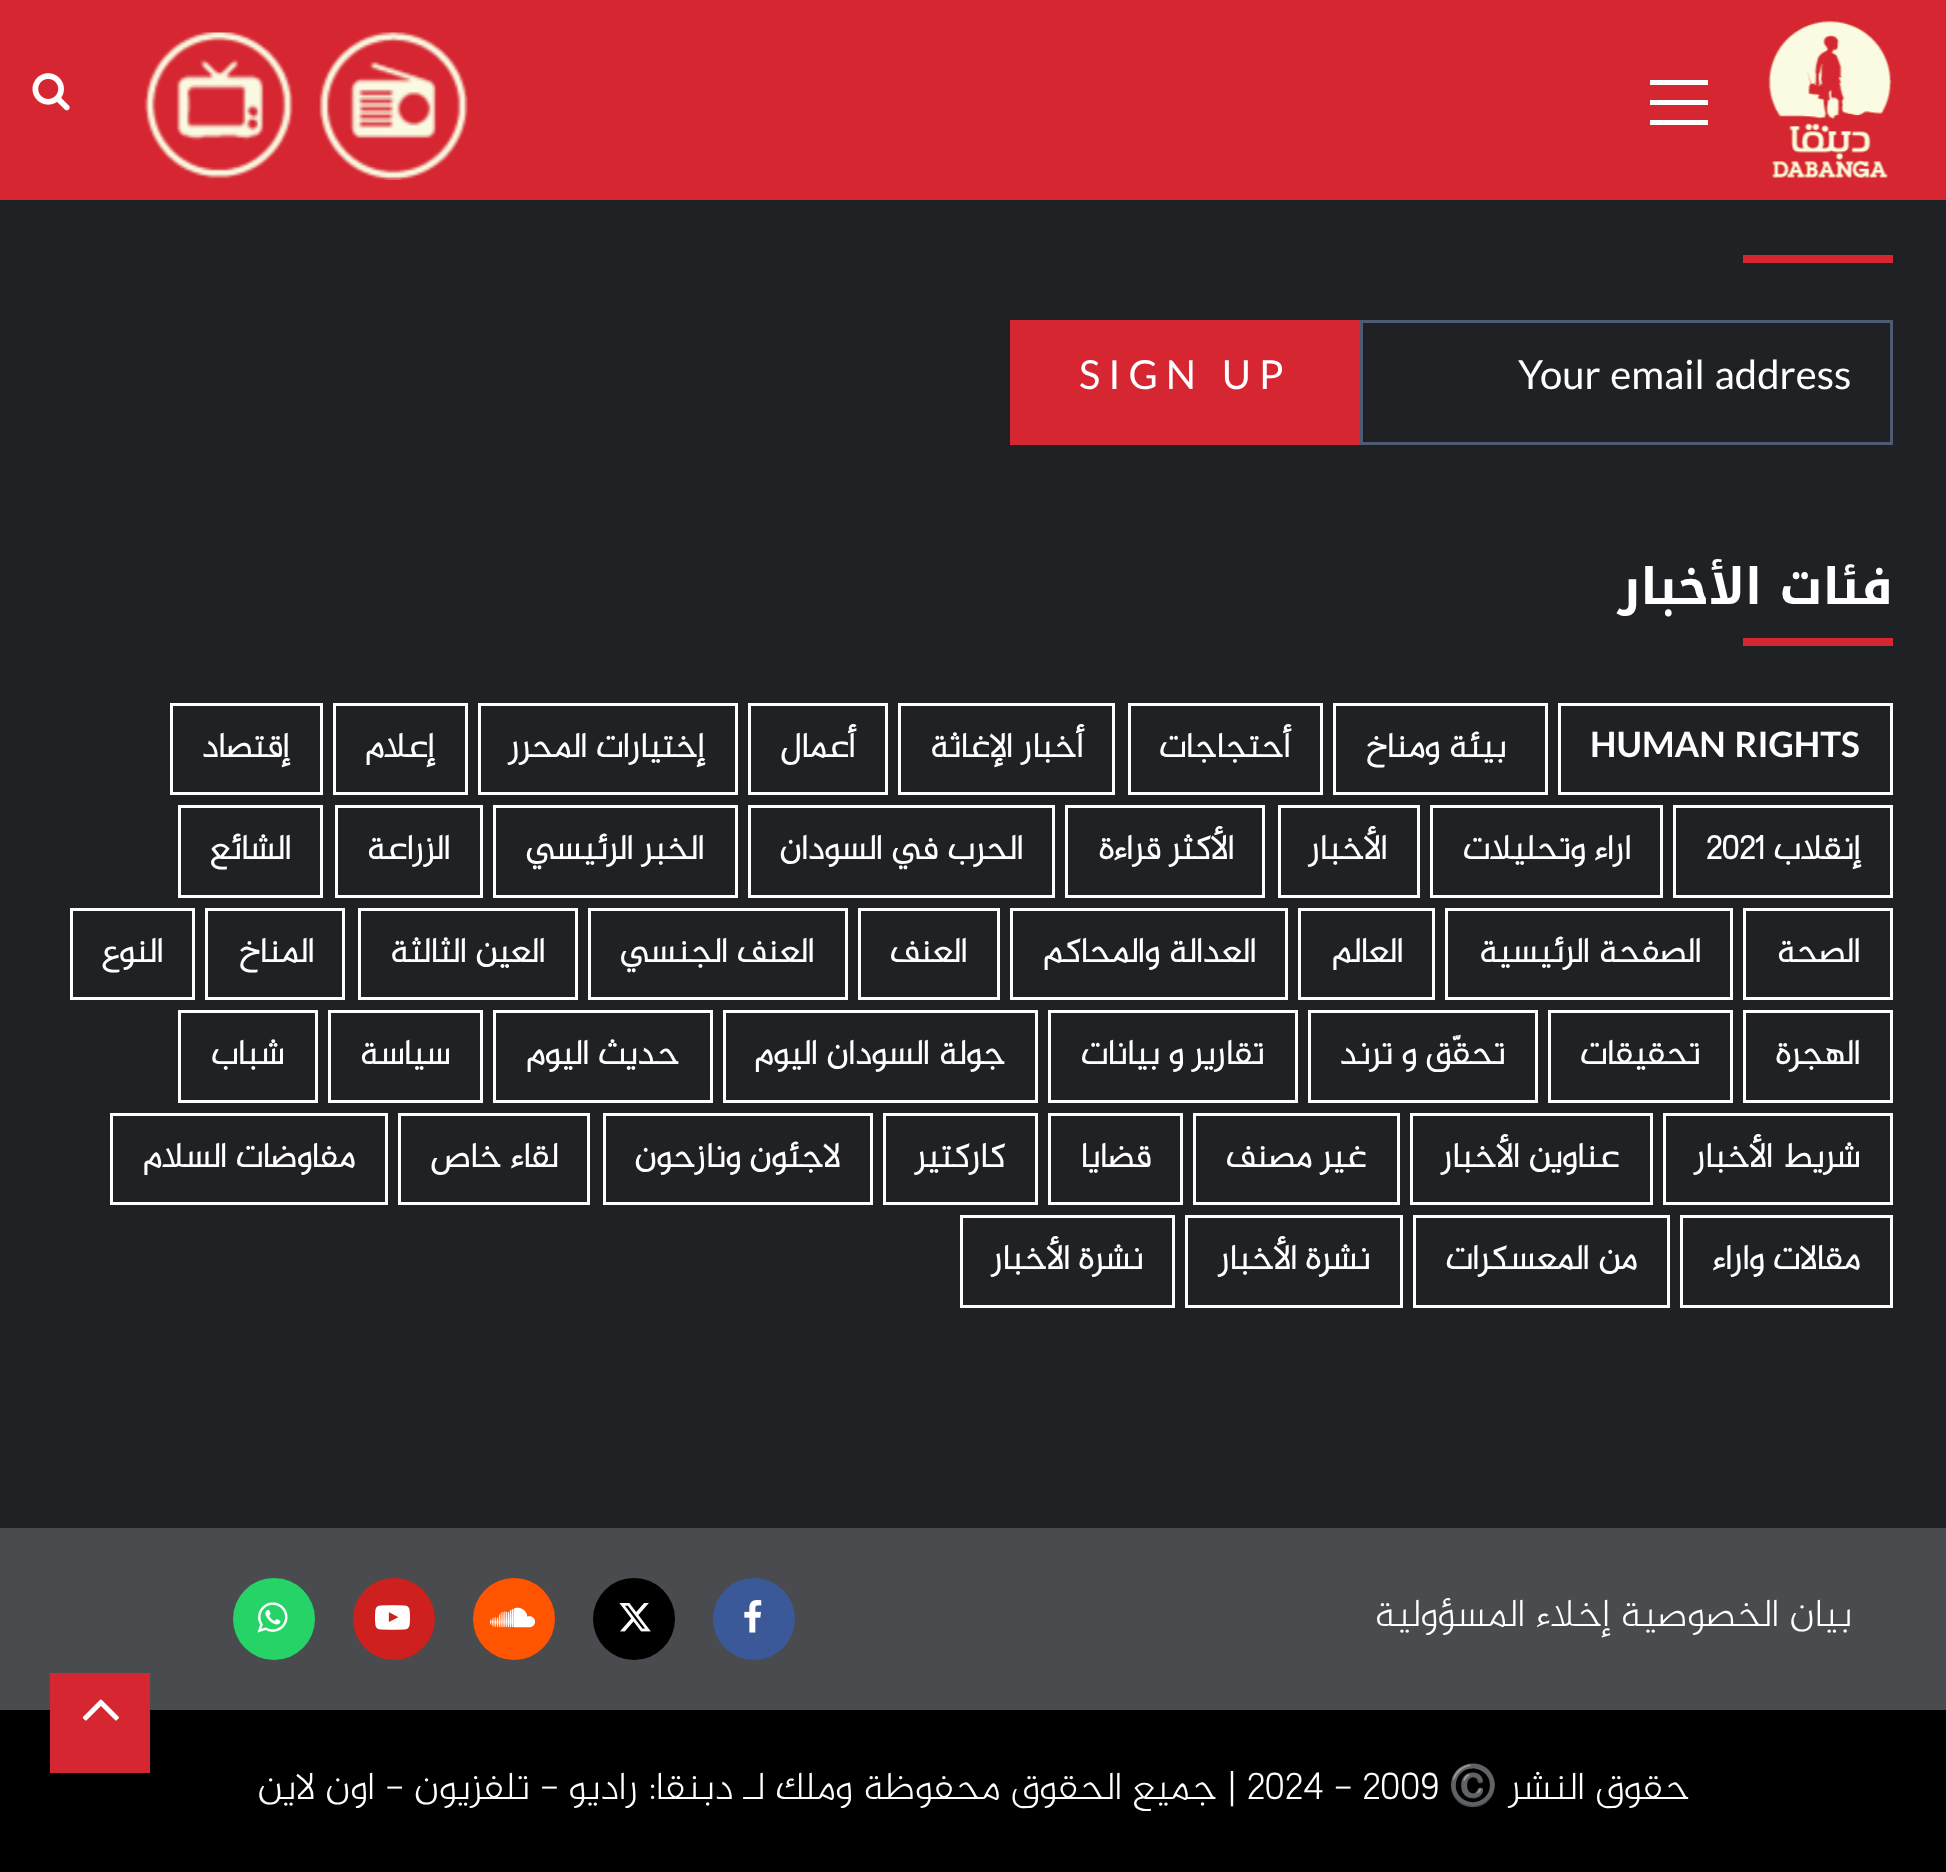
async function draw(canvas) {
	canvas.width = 1946;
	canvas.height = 1872;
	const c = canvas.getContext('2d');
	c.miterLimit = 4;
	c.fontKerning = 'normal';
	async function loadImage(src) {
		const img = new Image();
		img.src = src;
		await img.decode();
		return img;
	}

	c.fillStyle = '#1f2125';
	c.fillRect(0, 0, 1946, 1872);
	c.fillStyle = '#d52631';
	c.fillRect(0, 0, 1946, 200);
	c.drawImage(await loadImage('img1.png'), 1768, 21, 124, 157);
	for (const [x, y, w, h, color] of [
		[1650, 100, 58, 5, '#fff'],
		[1650, 80, 58, 5, '#fff'],
		[1650, 120, 58, 5, '#fff'],
	]) {
		c.fillStyle = color;
		c.fillRect(x, y, w, h);
	}
	c.drawImage(await loadImage('img2.png'), 319, 32, 149, 148);
	c.drawImage(await loadImage('img3.png'), 144, 32, 149, 147);
	c.drawImage(await loadImage('img4.png'), 32, 73, 38, 38);
	c.fillStyle = '#d52631';
	c.fillRect(1743, 255, 150, 8);
	c.strokeStyle = '#4d5b73';
	c.lineWidth = 3;
	c.strokeRect(1361.5, 321.5, 530, 122);
	c.wordSpacing = '2px';
	c.font = '40px Lato';
	c.fillStyle = '#fff';
	c.fillText('Your email address', 1518, 389);
	c.fillStyle = '#d52631';
	c.fillRect(1010, 320, 350, 125);
	c.letterSpacing = '8px';
	c.fillStyle = '#fff';
	c.fillText('SIGN UP', 1079, 389);
	c.letterSpacing = '0px';
	c.wordSpacing = '0px';
	c.direction = 'rtl';
	c.font = 'bold 50px Noto Kufi Arabic';
	c.fillText('فئات الأخبار', 1893, 604);
	c.fillStyle = '#d52631';
	c.fillRect(1743, 638, 150, 8);
	c.strokeStyle = '#fff';
	c.strokeRect(1559.5, 704.5, 332, 89);
	c.wordSpacing = '2px';
	c.direction = 'ltr';
	c.font = 'bold 35px Lato';
	c.fillStyle = '#fff';
	c.fillText('HUMAN RIGHTS', 1590, 757);
	c.strokeRect(1334.5, 704.5, 212, 89);
	c.wordSpacing = '0px';
	c.direction = 'rtl';
	c.font = 'bold 35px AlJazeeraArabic';
	c.fillText('بيئة ومناخ', 1506, 757);
	c.strokeRect(1129.5, 704.5, 192, 89);
	c.fillText('أحتجاجات', 1290, 757);
	c.strokeRect(899.5, 704.5, 214, 89);
	c.fillText('أخبار الإغاثة', 1083, 757);
	c.strokeRect(749.5, 704.5, 137, 89);
	c.fillText('أعمال', 855, 757);
	c.strokeRect(479.5, 704.5, 257, 89);
	c.fillText('إختيارات المحرر', 704, 757);
	c.strokeRect(334.5, 704.5, 132, 89);
	c.fillText('إعلام', 434, 757);
	c.strokeRect(171.5, 704.5, 150, 89);
	c.fillText('إقتصاد', 289, 757);
	c.strokeRect(1674.5, 806.5, 217, 90);
	c.fillText('إنقلاب', 1860, 859);
	c.direction = 'ltr';
	c.fillText('2021', 1706, 859);
	c.strokeRect(1431.5, 806.5, 230, 90);
	c.direction = 'rtl';
	c.fillText('اراء وتحليلات', 1631, 859);
	c.strokeRect(1279.5, 806.5, 139, 90);
	c.fillText('الأخبار', 1387, 859);
	c.strokeRect(1066.5, 806.5, 197, 90);
	c.fillText('الأكثر قراءة', 1234, 859);
	c.strokeRect(749.5, 806.5, 304, 90);
	c.fillText('الحرب في السودان', 1023, 859);
	c.strokeRect(494.5, 806.5, 242, 90);
	c.fillText('الخبر الرئيسي', 704, 859);
	c.strokeRect(336.5, 806.5, 145, 90);
	c.fillText('الزراعة', 450, 859);
	c.strokeRect(179.5, 806.5, 142, 90);
	c.fillText('الشائع', 291, 859);
	c.strokeRect(1744.5, 909.5, 147, 89);
	c.fillText('الصحة', 1860, 962);
	c.strokeRect(1446.5, 909.5, 285, 89);
	c.fillText('الصفحة الرئيسية', 1701, 962);
	c.strokeRect(1299.5, 909.5, 134, 89);
	c.fillText('العالم', 1403, 962);
	c.strokeRect(1011.5, 909.5, 275, 89);
	c.fillText('العدالة والمحاكم', 1256, 962);
	c.strokeRect(859.5, 909.5, 139, 89);
	c.fillText('العنف', 967, 962);
	c.strokeRect(589.5, 909.5, 257, 89);
	c.fillText('العنف الجنسي', 814, 962);
	c.strokeRect(359.5, 909.5, 217, 89);
	c.fillText('العين الثالثة', 545, 962);
	c.strokeRect(206.5, 909.5, 137, 89);
	c.fillText('المناخ', 314, 962);
	c.strokeRect(71.5, 909.5, 122, 89);
	c.fillText('النوع', 163, 962);
	c.strokeRect(1744.5, 1011.5, 147, 90);
	c.fillText('الهجرة', 1860, 1064);
	c.strokeRect(1549.5, 1011.5, 182, 90);
	c.fillText('تحقيقات', 1700, 1064);
	c.strokeRect(1309.5, 1011.5, 227, 90);
	c.fillText('تحقّق و ترند', 1505, 1064);
	c.strokeRect(1049.5, 1011.5, 247, 90);
	c.fillText('تقارير و بيانات', 1264, 1064);
	c.strokeRect(724.5, 1011.5, 312, 90);
	c.fillText('جولة السودان اليوم', 1005, 1064);
	c.strokeRect(494.5, 1011.5, 217, 90);
	c.fillText('حديث اليوم', 679, 1064);
	c.strokeRect(329.5, 1011.5, 152, 90);
	c.fillText('سياسة', 450, 1064);
	c.strokeRect(179.5, 1011.5, 137, 90);
	c.fillText('شباب', 284, 1064);
	c.strokeRect(1664.5, 1114.5, 227, 89);
	c.fillText('شريط الأخبار', 1860, 1167);
	c.strokeRect(1411.5, 1114.5, 240, 89);
	c.fillText('عناوين الأخبار', 1619, 1167);
	c.strokeRect(1194.5, 1114.5, 204, 89);
	c.fillText('غير مصنف', 1366, 1167);
	c.strokeRect(1049.5, 1114.5, 132, 89);
	c.fillText('قضايا', 1151, 1167);
	c.strokeRect(884.5, 1114.5, 152, 89);
	c.fillText('كاركتير', 1005, 1167);
	c.strokeRect(604.5, 1114.5, 267, 89);
	c.fillText('لاجئون ونازحون', 840, 1167);
	c.strokeRect(399.5, 1114.5, 189, 89);
	c.fillText('لقاء خاص', 558, 1167);
	c.strokeRect(111.5, 1114.5, 275, 89);
	c.fillText('مفاوضات السلام', 355, 1167);
	c.strokeRect(1681.5, 1216.5, 210, 90);
	c.fillText('مقالات واراء', 1860, 1269);
	c.strokeRect(1414.5, 1216.5, 254, 90);
	c.fillText('من المعسكرات', 1637, 1269);
	c.strokeRect(1186.5, 1216.5, 215, 90);
	c.fillText('نشرة الأخبار', 1370, 1269);
	c.strokeRect(961.5, 1216.5, 212, 90);
	c.fillText('نشرة الأخبار', 1143, 1269);
	c.fillStyle = '#494b4e';
	c.fillRect(0, 1528, 1946, 182);
	c.font = '300 40px AlJazeeraArabic';
	c.fillStyle = '#fff';
	c.fillText('بيان الخصوصية', 1852, 1626);
	c.fillText('إخلاء المسؤولية', 1610, 1626);
	c.fillStyle = '#3b5999';
	c.beginPath();
	c.arc(754, 1619, 41, 0, 2 * Math.PI);
	c.fill();
	c.drawImage(await loadImage('img5.png'), 744, 1600, 18, 33);
	c.fillStyle = '#000';
	c.beginPath();
	c.arc(634, 1619, 41, 0, 2 * Math.PI);
	c.fill();
	c.drawImage(await loadImage('img6.png'), 619, 1603, 32, 29);
	c.fillStyle = '#f50';
	c.beginPath();
	c.arc(514, 1619, 41, 0, 2 * Math.PI);
	c.fill();
	c.drawImage(await loadImage('img7.png'), 490, 1607, 45, 21);
	c.fillStyle = '#cd201f';
	c.beginPath();
	c.arc(394, 1619, 41, 0, 2 * Math.PI);
	c.fill();
	c.drawImage(await loadImage('img8.png'), 375, 1605, 35, 25);
	c.fillStyle = '#25d366';
	c.beginPath();
	c.arc(274, 1619, 41, 0, 2 * Math.PI);
	c.fill();
	c.drawImage(await loadImage('img9.png'), 257, 1602, 31, 31);
	c.fillStyle = '#000';
	c.fillRect(0, 1710, 1946, 162);
	c.fillStyle = '#fff';
	c.fillText('حقوق النشر', 1690, 1799);
	c.font = '40px Noto Color Emoji';
	c.fillText('©️', 1498, 1799);
	c.direction = 'ltr';
	c.font = '300 40px AlJazeeraArabic';
	c.fillText('2024 - 2009', 1247, 1799);
	c.direction = 'rtl';
	c.fillText('| جميع الحقوق محفوظة وملك لـ دبنقا: راديو - تلفزيون - اون لاين', 1236, 1799);
	c.fillStyle = '#d52631';
	c.fillRect(50, 1673, 100, 100);
	c.drawImage(await loadImage('img10.png'), 82, 1699, 37, 22);
}

draw(document.querySelector('canvas'));
